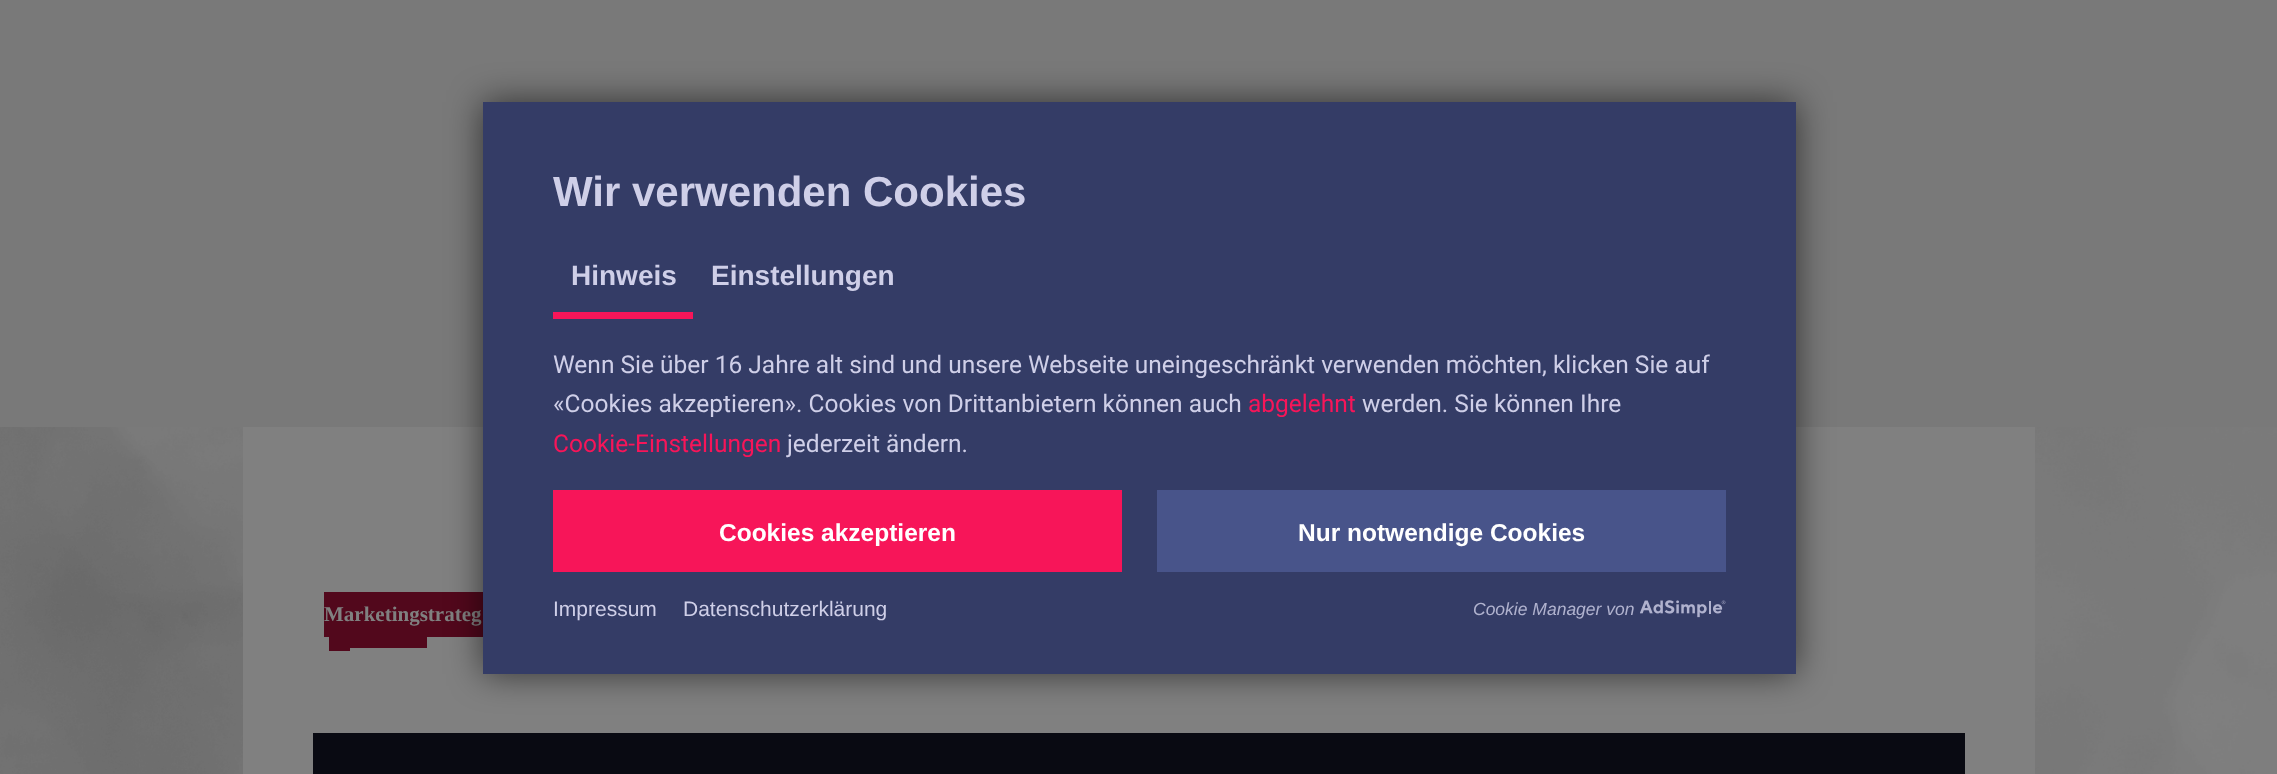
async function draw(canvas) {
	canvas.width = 2277;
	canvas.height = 774;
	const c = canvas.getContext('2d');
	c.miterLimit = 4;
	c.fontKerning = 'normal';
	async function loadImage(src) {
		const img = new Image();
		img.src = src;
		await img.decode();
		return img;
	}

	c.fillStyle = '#fff';
	c.fillRect(0, 0, 2277, 774);
	c.drawImage(await loadImage('img1.png'), 0, 427, 2277, 347);
	for (const [x, y, w, h, color] of [
		[0, 0, 2277, 427, '#797979'],
		[243, 427, 1792, 347, '#808080'],
		[324, 592, 159, 45, '#52081c'],
	]) {
		c.fillStyle = color;
		c.fillRect(x, y, w, h);
	}
	c.font = 'bold 21px Liberation Serif';
	c.fillStyle = '#808080';
	c.fillText('Marketingstrateg', 324, 621);
	for (const [x, y, w, h, color] of [
		[329, 637, 21, 14, '#52081c'],
		[350, 637, 77, 11, '#52081c'],
		[313, 733, 1652, 41, '#090a12'],
	]) {
		c.fillStyle = color;
		c.fillRect(x, y, w, h);
	}
	c.fillStyle = '#00000099';
	c.filter = 'blur(17.5px)';
	c.beginPath();
	c.rect(483, 102, 1313, 572);
	c.fill();
	c.filter = 'none';
	c.fillStyle = '#343c66';
	c.fillRect(483, 102, 1313, 572);
	c.font = 'bold 42px Liberation Sans';
	c.fillStyle = '#cfcfe8';
	c.fillText('Wir verwenden Cookies', 553, 206);
	c.fillStyle = '#f71559';
	c.fillRect(553, 312, 140, 7);
	c.font = 'bold 28px Liberation Sans';
	c.fillStyle = '#cfcfe8';
	c.fillText('Hinweis', 571, 285);
	c.fillText('Einstellungen', 711, 285);
	c.font = '24.5px Roboto';
	c.fillText('Wenn Sie über 16 Jahre alt sind und unsere Webseite uneingeschränkt verwenden möchten, klicken Sie auf', 553, 373);
	c.fillText('«Cookies akzeptieren». Cookies von Drittanbietern können auch', 553, 412);
	c.fillStyle = '#f71559';
	c.fillText('abgelehnt', 1248, 412);
	c.fillStyle = '#cfcfe8';
	c.fillText('werden. Sie können Ihre', 1362, 412);
	c.fillStyle = '#f71559';
	c.fillText('Cookie-Einstellungen', 553, 452);
	c.fillStyle = '#cfcfe8';
	c.fillText('jederzeit ändern.', 787, 452);
	c.fillStyle = '#f71559';
	c.fillRect(553, 490, 569, 82);
	c.font = 'bold 24.5px Liberation Sans';
	c.fillStyle = '#fff';
	c.fillText('Cookies akzeptieren', 719, 541);
	c.fillStyle = '#48548a';
	c.fillRect(1157, 490, 569, 82);
	c.fillStyle = '#fff';
	c.fillText('Nur notwendige Cookies', 1298, 541);
	c.font = '21px Liberation Sans';
	c.fillStyle = '#cfcfe8';
	c.fillText('Impressum', 553, 616);
	c.fillText('Datenschutzerklärung', 683, 616);
	c.font = 'italic 17.5px Liberation Sans';
	c.fillStyle = '#b0b2ce';
	c.fillText('Cookie Manager von', 1473, 615);
	c.drawImage(await loadImage('img2.png'), 1640, 600, 86, 18);
}

draw(document.querySelector('canvas'));
